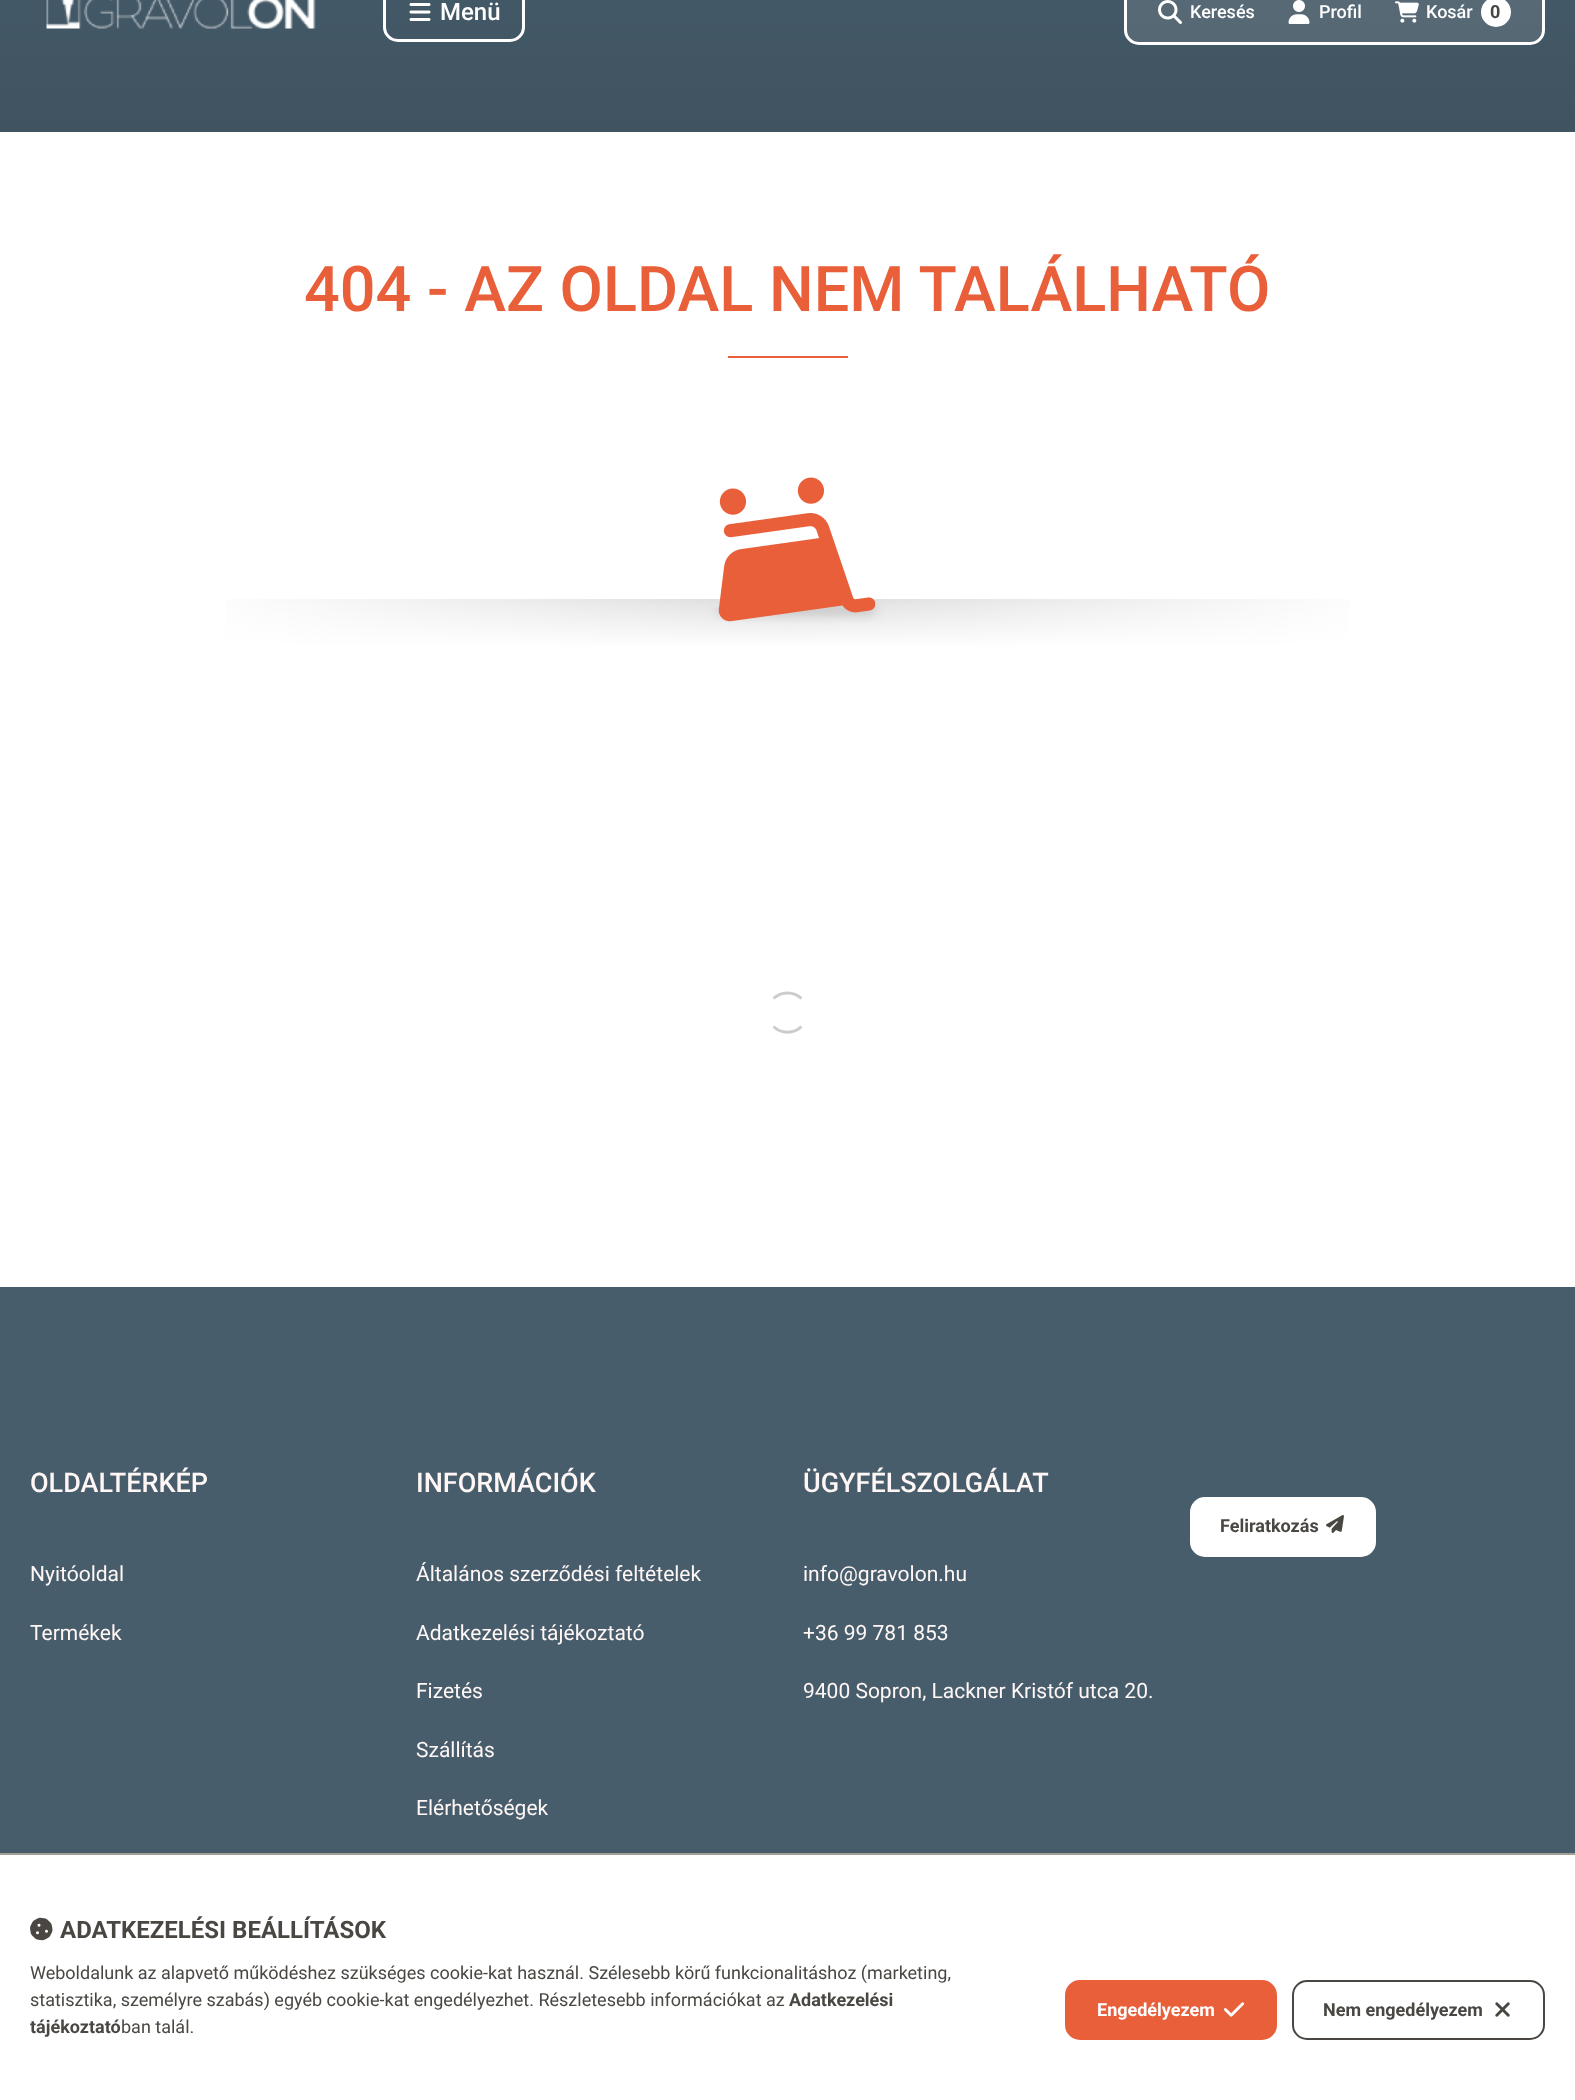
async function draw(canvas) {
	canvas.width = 1575;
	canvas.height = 2100;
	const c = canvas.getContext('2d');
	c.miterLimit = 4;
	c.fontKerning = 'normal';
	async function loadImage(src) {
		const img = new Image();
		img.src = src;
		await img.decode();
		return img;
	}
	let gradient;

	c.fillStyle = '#fff';
	c.fillRect(0, 0, 1575, 2100);
	gradient = c.createLinearGradient(788, -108, 788, 132);
	gradient.addColorStop(0, '#475d6c');
	gradient.addColorStop(1, '#3f5360');
	c.fillStyle = gradient;
	c.fillRect(0, 0, 1575, 132);
	c.drawImage(await loadImage('img1.png'), 46, 0, 270, 29);
	c.beginPath();
	c.roundRect(384.5, -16.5, 139, 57, 13.5);
	c.strokeStyle = '#fff';
	c.lineWidth = 3;
	c.stroke();
	c.drawImage(await loadImage('img2.png'), 409, 3, 22, 18);
	c.font = '500 24px Roboto';
	c.fillStyle = '#fff';
	c.fillText('Menü', 440, 20);
	c.fillStyle = '#ffffff1a';
	c.beginPath();
	c.roundRect(1125.5, -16.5, 418, 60, 13.5);
	c.fill();
	c.stroke();
	c.drawImage(await loadImage('img3.png'), 1158, 0, 24, 24);
	c.font = '500 18px Roboto';
	c.fillStyle = '#fff';
	c.fillText('Keresés', 1190, 18);
	c.drawImage(await loadImage('img4.png'), 1288, 0, 22, 24);
	c.fillText('Profil', 1319, 18);
	c.drawImage(await loadImage('img5.png'), 1395, 1, 24, 22);
	c.fillText('Kosár', 1426, 18);
	c.beginPath();
	c.arc(1496, 12, 15, 0, 2 * Math.PI);
	c.fill();
	c.font = 'bold 18px Roboto';
	c.fillStyle = '#4a4743';
	c.fillText('0', 1490, 18);
	c.font = '500 63px Roboto';
	c.fillStyle = '#e85f3a';
	c.fillText('404 - AZ OLDAL NEM TALÁLHATÓ', 304, 311);
	c.fillRect(728, 356, 120, 2);
	gradient = c.createLinearGradient(30, 623, 1545, 622);
	gradient.addColorStop(0.1, '#fff');
	gradient.addColorStop(0.5, '#ddd');
	gradient.addColorStop(0.9, '#fff');
	c.fillStyle = gradient;
	c.fillRect(226, 599, 1123, 48);
	gradient = c.createLinearGradient(788, 647, 788, 599);
	gradient.addColorStop(0, '#fff');
	gradient.addColorStop(1, '#ffffff00');
	c.fillStyle = gradient;
	c.fillRect(226, 603, 1123, 44);
	c.save();
	c.beginPath();
	c.moveTo(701, 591);
	c.lineTo(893, 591);
	c.lineTo(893, 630);
	c.lineTo(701, 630);
	c.closePath();
	c.moveTo(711.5, 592.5);
	c.lineTo(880, 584);
	c.lineTo(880.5, 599);
	c.lineTo(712.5, 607.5);
	c.closePath();
	c.clip('evenodd');
	c.fillStyle = '#808080';
	c.filter = 'blur(5.5px)';
	c.beginPath();
	c.rect(719, 609, 156, 3);
	c.fill();
	c.filter = 'none';
	c.restore();
	c.drawImage(await loadImage('img6.png'), 718, 477, 158, 145);
	c.beginPath();
	c.moveTo(773.5, 998.5);
	c.bezierCurveTo(781, 991, 794, 991, 801.5, 998.5);
	c.moveTo(801.5, 1026.5);
	c.bezierCurveTo(794, 1034, 781, 1034, 773.5, 1026.5);
	c.strokeStyle = '#ccc';
	c.stroke();
	c.fillStyle = '#475d6c';
	c.fillRect(0, 1287, 1575, 566);
	c.font = '500 27px Roboto';
	c.fillStyle = '#fff7f5';
	c.fillText('OLDALTÉRKÉP', 30, 1492);
	c.font = '21px Roboto';
	c.fillText('Nyitóoldal', 30, 1581);
	c.fillText('Termékek', 30, 1640);
	c.font = '500 27px Roboto';
	c.fillText('INFORMÁCIÓK', 416, 1492);
	c.font = '21px Roboto';
	for (const [text, x, y] of [
		['Általános szerződési feltételek', 416, 1581],
		['Adatkezelési tájékoztató', 416, 1640],
		['Fizetés', 416, 1698],
		['Szállítás', 416, 1757],
		['Elérhetőségek', 416, 1815],
	]) {
		c.fillText(text, x, y);
	}
	c.font = '500 27px Roboto';
	c.fillText('ÜGYFÉLSZOLGÁLAT', 803, 1492);
	c.font = '21px Roboto';
	for (const [text, x, y] of [
		['info@gravolon.hu', 803, 1581],
		['+36 99 781 853', 803, 1640],
		['9400 Sopron, Lackner Kristóf utca 20.', 803, 1698],
	]) {
		c.fillText(text, x, y);
	}
	c.fillStyle = '#fff';
	c.beginPath();
	c.roundRect(1191, 1498, 184, 58, 14);
	c.fill();
	c.strokeStyle = '#fff';
	c.lineWidth = 2;
	c.stroke();
	c.font = 'bold 18px Roboto';
	c.fillStyle = '#4a4743';
	c.fillText('Feliratkozás', 1220, 1532);
	c.drawImage(await loadImage('img7.png'), 1326, 1515, 18, 18);
	c.fillStyle = '#a39e94';
	c.fillRect(0, 1853, 1575, 2);
	c.drawImage(await loadImage('img8.png'), 30, 1917, 23, 24);
	c.font = 'bold 24px Roboto';
	c.fillStyle = '#4a4743';
	c.fillText('ADATKEZELÉSI BEÁLLÍTÁSOK', 60, 1938);
	c.font = '18px Roboto';
	c.fillText('Weboldalunk az alapvető működéshez szükséges cookie-kat használ. Szélesebb körű funkcionalitáshoz (marketing,', 30, 1979);
	c.fillText('statisztika, személyre szabás) egyéb cookie-kat engedélyezhet. Részletesebb információkat az', 30, 2006);
	c.font = 'bold 18px Roboto';
	c.fillText('Adatkezelési', 789, 2006);
	c.fillText('tájékoztató', 30, 2033);
	c.font = '18px Roboto';
	c.fillText('ban talál.', 121, 2033);
	c.fillStyle = '#e85f3a';
	c.beginPath();
	c.roundRect(1066, 1981, 210, 58, 14);
	c.fill();
	c.strokeStyle = '#e85f3a';
	c.stroke();
	c.font = 'bold 18px Roboto';
	c.fillStyle = '#fff';
	c.fillText('Engedélyezem', 1097, 2016);
	c.drawImage(await loadImage('img9.png'), 1224, 2002, 21, 15);
	c.beginPath();
	c.roundRect(1293, 1981, 251, 58, 14);
	c.strokeStyle = '#4a4743';
	c.stroke();
	c.fillStyle = '#4a4743';
	c.fillText('Nem engedélyezem', 1323, 2016);
	c.drawImage(await loadImage('img10.png'), 1495, 2002, 15, 15);
}

draw(document.querySelector('canvas'));
